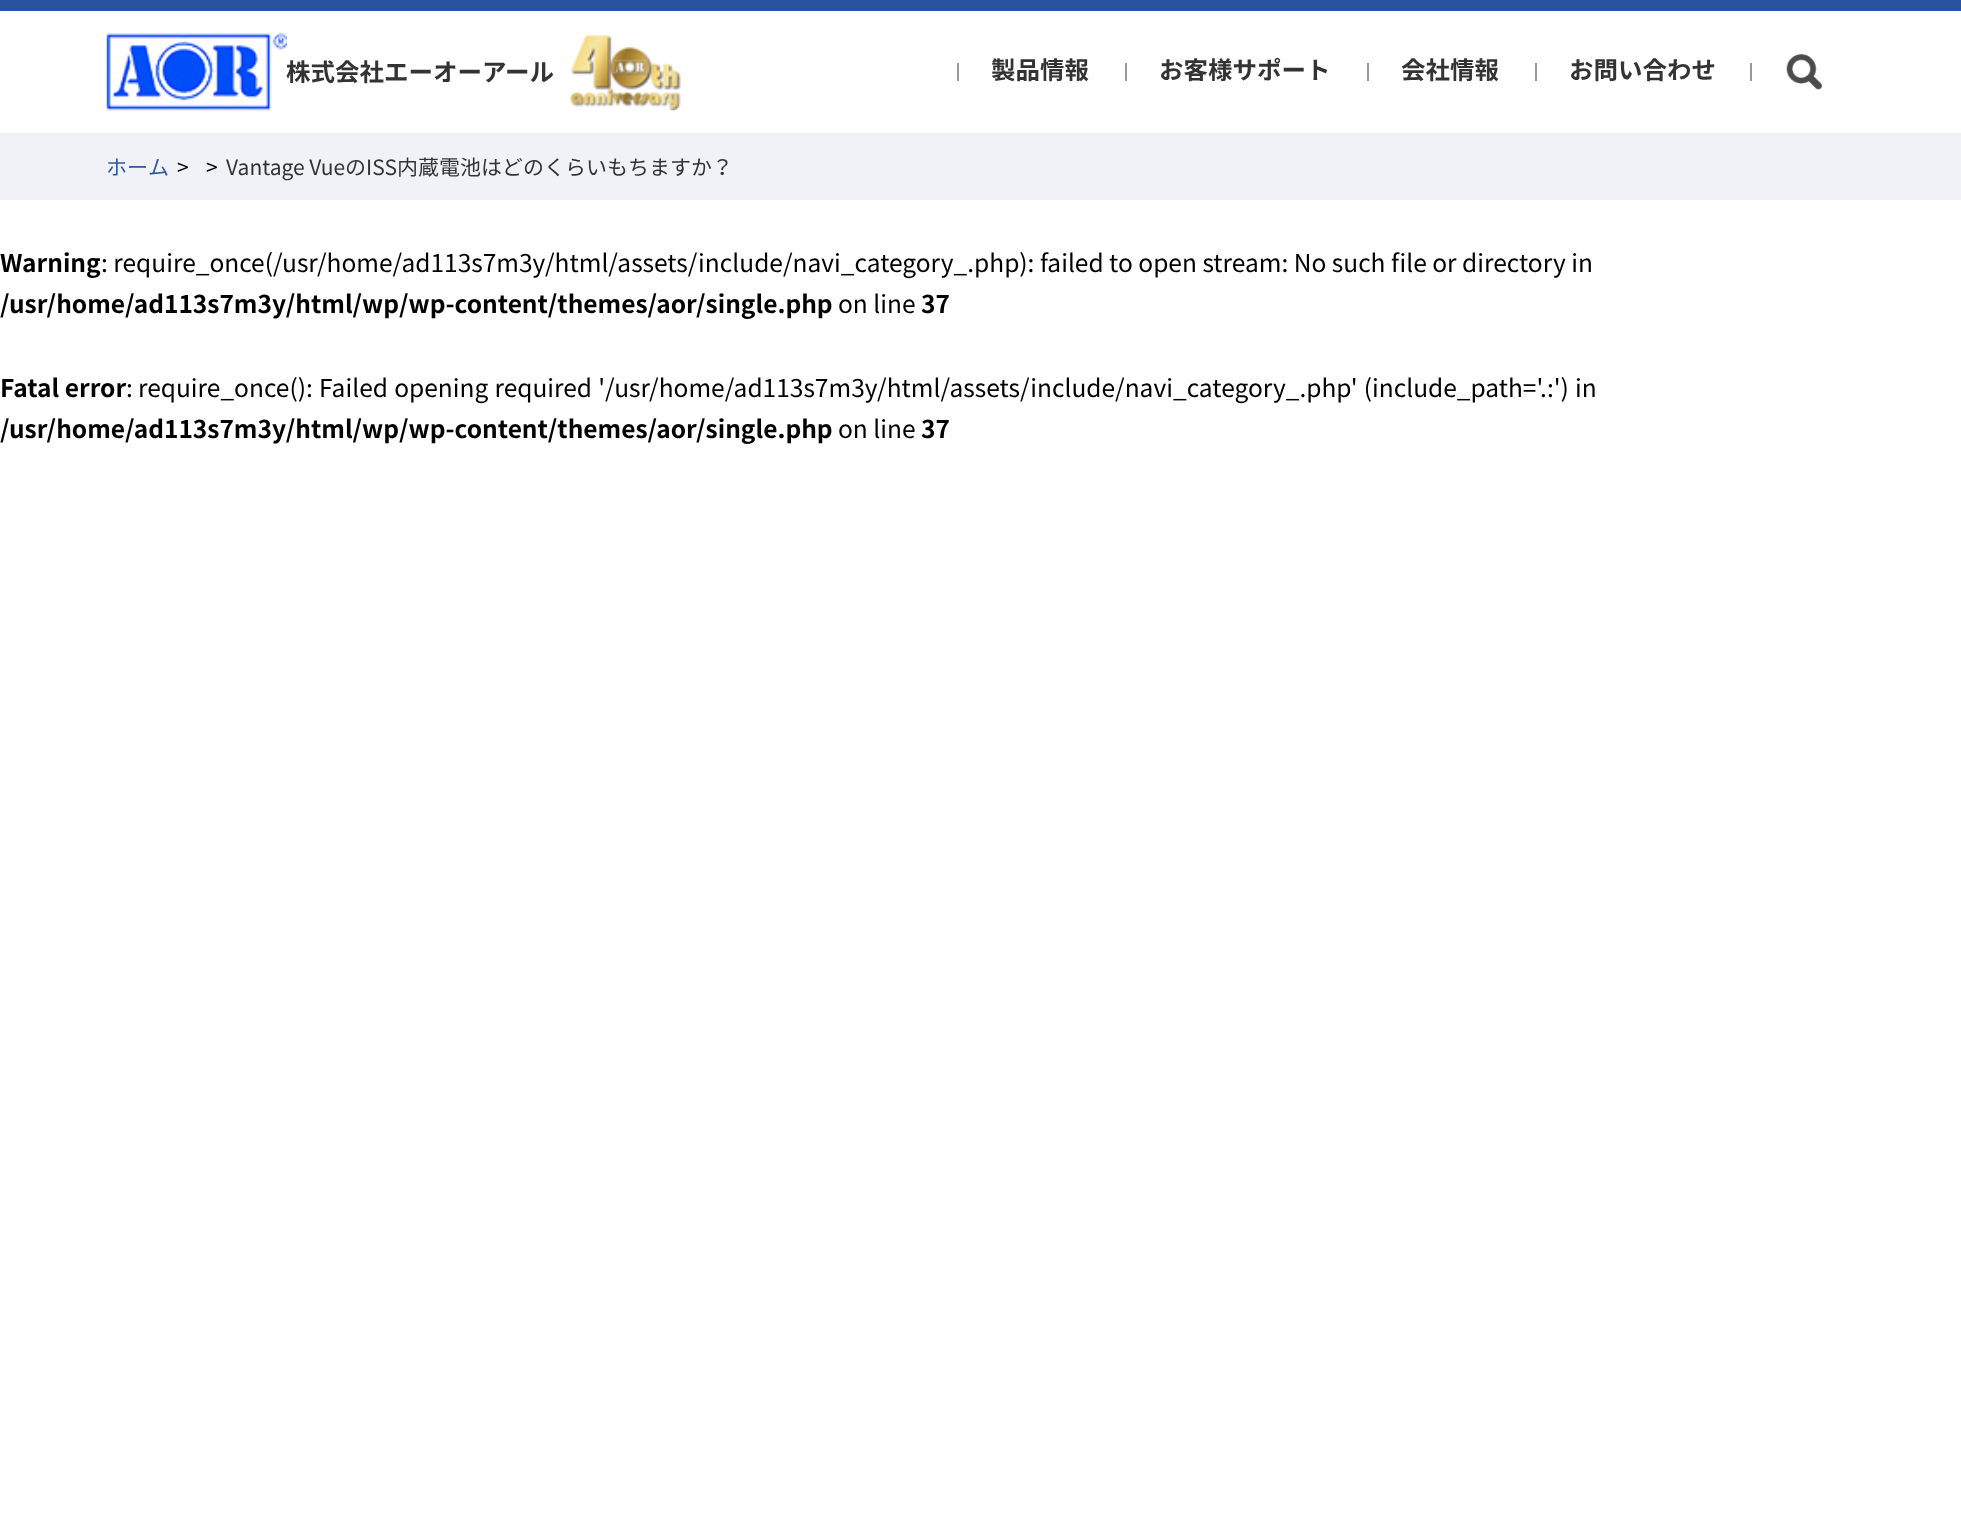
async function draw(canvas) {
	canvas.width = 1961;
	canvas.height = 1529;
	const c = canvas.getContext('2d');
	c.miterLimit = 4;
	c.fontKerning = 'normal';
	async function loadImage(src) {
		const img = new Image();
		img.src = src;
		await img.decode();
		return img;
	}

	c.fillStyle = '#fff';
	c.fillRect(0, 0, 1961, 1529);
	c.fillStyle = '#2a539f';
	c.fillRect(0, 0, 1961, 11);
	c.drawImage(await loadImage('img1.png'), 106, 33, 181, 78);
	c.font = 'bold 24.5px Noto Sans JP';
	c.fillStyle = '#333';
	c.fillText('株式会社エーオーアール', 286, 81);
	c.drawImage(await loadImage('img2.png'), 570, 34, 111, 77);
	c.fillStyle = '#999';
	c.fillRect(957, 63, 2, 18);
	c.fillStyle = '#333';
	c.fillText('製品情報', 991, 79);
	c.fillStyle = '#999';
	c.fillRect(1125, 63, 2, 18);
	c.fillStyle = '#333';
	c.fillText('お客様サポート', 1159, 79);
	c.fillStyle = '#999';
	c.fillRect(1367, 63, 2, 18);
	c.fillStyle = '#333';
	c.fillText('会社情報', 1401, 79);
	c.fillStyle = '#999';
	c.fillRect(1535, 63, 2, 18);
	c.fillStyle = '#333';
	c.fillText('お問い合わせ', 1569, 79);
	c.fillStyle = '#999';
	c.fillRect(1750, 63, 2, 18);
	c.drawImage(await loadImage('img3.png'), 1786, 54, 36, 36);
	c.fillStyle = '#f0f2f7';
	c.fillRect(0, 133, 1961, 67);
	c.font = '21px Noto Sans JP';
	c.fillStyle = '#31589d';
	c.fillText('ホーム', 106, 175);
	c.fillStyle = '#000';
	c.fillText('>', 177, 175);
	c.fillText('>', 206, 175);
	c.fillStyle = '#333';
	c.fillText('Vantage VueのISS内蔵電池はどのくらいもちますか？', 226, 175);
	c.font = 'bold 24.5px Noto Sans JP';
	c.fillStyle = '#000';
	c.fillText('Warning', 0, 272);
	c.font = '24.5px Noto Sans JP';
	c.fillText(': require_once(/usr/home/ad113s7m3y/html/assets/include/navi_category_.php): failed to open stream: No such file or directory in', 101, 272);
	c.font = 'bold 24.5px Noto Sans JP';
	c.fillText('/usr/home/ad113s7m3y/html/wp/wp-content/themes/aor/single.php', 0, 313);
	c.font = '24.5px Noto Sans JP';
	c.fillText('on line', 838, 313);
	c.font = 'bold 24.5px Noto Sans JP';
	c.fillText('37', 921, 313);
	c.fillText('Fatal error', 0, 397);
	c.font = '24.5px Noto Sans JP';
	c.fillText(':', 126, 397);
	c.wordSpacing = '0.75px';
	c.fillText('require_once(): Failed opening required \'/usr/home/ad113s7m3y/html/assets/include/navi_category_.php\' (include_path=\'.:\') in', 138, 397);
	c.wordSpacing = '0px';
	c.font = 'bold 24.5px Noto Sans JP';
	c.fillText('/usr/home/ad113s7m3y/html/wp/wp-content/themes/aor/single.php', 0, 438);
	c.font = '24.5px Noto Sans JP';
	c.fillText('on line', 838, 438);
	c.font = 'bold 24.5px Noto Sans JP';
	c.fillText('37', 921, 438);
}

draw(document.querySelector('canvas'));
